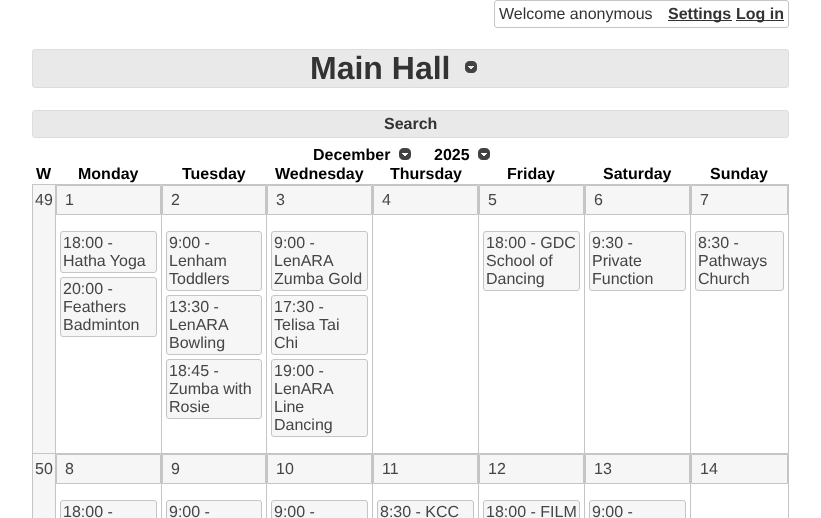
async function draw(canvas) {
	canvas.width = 821;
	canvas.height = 518;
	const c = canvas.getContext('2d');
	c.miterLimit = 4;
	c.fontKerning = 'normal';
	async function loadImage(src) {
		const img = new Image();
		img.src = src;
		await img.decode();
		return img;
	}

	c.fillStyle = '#fff';
	c.fillRect(0, 0, 821, 518);
	c.beginPath();
	c.roundRect(494.5, 0.5, 294, 27, 2.5);
	c.strokeStyle = '#c5c5c5';
	c.stroke();
	c.font = '16px Liberation Sans';
	c.fillStyle = '#333';
	c.fillText('Welcome anonymous', 499, 19);
	c.fillRect(668, 20, 64, 1);
	c.font = 'bold 16px Liberation Sans';
	c.fillText('Settings', 668, 19);
	c.fillRect(736, 20, 48, 1);
	c.fillText('Log in', 736, 19);
	c.fillStyle = '#e9e9e9';
	c.beginPath();
	c.roundRect(32.5, 49.5, 756, 38, 2.5);
	c.fill();
	c.strokeStyle = '#ddd';
	c.stroke();
	c.font = 'bold 32px Liberation Sans';
	c.fillStyle = '#333';
	c.fillText('Main Hall', 310, 79);
	c.drawImage(await loadImage('img1.png'), 465, 61, 12, 12);
	c.fillStyle = '#e9e9e9';
	c.beginPath();
	c.roundRect(32.5, 110.5, 756, 27, 2.5);
	c.fill();
	c.stroke();
	c.font = 'bold 16px Liberation Sans';
	c.fillStyle = '#333';
	c.fillText('Search', 384, 129);
	c.fillStyle = '#000';
	c.fillText('December', 313, 160);
	c.drawImage(await loadImage('img2.png'), 399, 148, 12, 12);
	c.fillText('2025', 434, 160);
	c.drawImage(await loadImage('img2.png'), 478, 148, 12, 12);
	for (const [text, x, y] of [
		['W', 36, 179],
		['Monday', 78, 179],
		['Tuesday', 182, 179],
		['Wednesday', 275, 179],
		['Thursday', 390, 179],
		['Friday', 507, 179],
		['Saturday', 603, 179],
		['Sunday', 710, 179],
	]) {
		c.fillText(text, x, y);
	}
	for (const [x, y, w, h, color] of [
		[33, 185, 22, 268, '#f6f6f6'],
		[690, 184, 99, 1, '#c5c5c5'],
		[690, 453, 99, 1, '#c5c5c5'],
		[690, 453, 1, 65, '#c5c5c5'],
		[584, 453, 107, 1, '#c5c5c5'],
		[690, 184, 1, 270, '#c5c5c5'],
		[584, 184, 107, 1, '#c5c5c5'],
		[584, 453, 1, 65, '#c5c5c5'],
		[478, 453, 107, 1, '#c5c5c5'],
		[584, 184, 1, 270, '#c5c5c5'],
		[478, 184, 107, 1, '#c5c5c5'],
		[478, 453, 1, 65, '#c5c5c5'],
		[372, 453, 107, 1, '#c5c5c5'],
		[478, 184, 1, 270, '#c5c5c5'],
		[372, 184, 107, 1, '#c5c5c5'],
		[372, 453, 1, 65, '#c5c5c5'],
		[266, 453, 107, 1, '#c5c5c5'],
		[372, 184, 1, 270, '#c5c5c5'],
		[266, 184, 107, 1, '#c5c5c5'],
		[266, 453, 1, 65, '#c5c5c5'],
		[161, 453, 106, 1, '#c5c5c5'],
		[266, 184, 1, 270, '#c5c5c5'],
		[161, 184, 106, 1, '#c5c5c5'],
		[161, 453, 1, 65, '#c5c5c5'],
		[55, 453, 107, 1, '#c5c5c5'],
		[161, 184, 1, 270, '#c5c5c5'],
		[55, 184, 107, 1, '#c5c5c5'],
		[55, 453, 1, 65, '#c5c5c5'],
		[32, 453, 24, 1, '#c5c5c5'],
		[55, 184, 1, 270, '#c5c5c5'],
		[32, 184, 24, 1, '#c5c5c5'],
		[32, 453, 1, 65, '#c5c5c5'],
		[32, 184, 1, 270, '#c5c5c5'],
	]) {
		c.fillStyle = color;
		c.fillRect(x, y, w, h);
	}
	c.font = '16px Liberation Sans';
	c.fillStyle = '#454545';
	c.fillText('49', 35, 205);
	c.fillStyle = '#f6f6f6';
	c.beginPath();
	c.rect(56.5, 185.5, 104, 29);
	c.fill();
	c.strokeStyle = '#c5c5c5';
	c.stroke();
	c.fillStyle = '#454545';
	c.fillText('1', 65, 205);
	c.fillStyle = '#f6f6f6';
	c.beginPath();
	c.roundRect(60.5, 231.5, 96, 41, 2.5);
	c.fill();
	c.stroke();
	c.fillStyle = '#454545';
	c.fillText('18:00 -', 63, 248);
	c.fillText('Hatha Yoga', 63, 266);
	c.fillStyle = '#f6f6f6';
	c.beginPath();
	c.roundRect(60.5, 277.5, 96, 59, 2.5);
	c.fill();
	c.stroke();
	c.fillStyle = '#454545';
	for (const [text, x, y] of [
		['20:00 -', 63, 294],
		['Feathers', 63, 312],
		['Badminton', 63, 330],
	]) {
		c.fillText(text, x, y);
	}
	c.fillStyle = '#f6f6f6';
	c.beginPath();
	c.rect(162.5, 185.5, 103, 29);
	c.fill();
	c.stroke();
	c.fillStyle = '#454545';
	c.fillText('2', 171, 205);
	c.fillStyle = '#f6f6f6';
	c.beginPath();
	c.roundRect(166.5, 231.5, 95, 59, 2.5);
	c.fill();
	c.stroke();
	c.fillStyle = '#454545';
	for (const [text, x, y] of [
		['9:00 -', 169, 248],
		['Lenham', 169, 266],
		['Toddlers', 169, 284],
	]) {
		c.fillText(text, x, y);
	}
	c.fillStyle = '#f6f6f6';
	c.beginPath();
	c.roundRect(166.5, 295.5, 95, 59, 2.5);
	c.fill();
	c.stroke();
	c.fillStyle = '#454545';
	for (const [text, x, y] of [
		['13:30 -', 169, 312],
		['LenARA', 169, 330],
		['Bowling', 169, 348],
	]) {
		c.fillText(text, x, y);
	}
	c.fillStyle = '#f6f6f6';
	c.beginPath();
	c.roundRect(166.5, 359.5, 95, 59, 2.5);
	c.fill();
	c.stroke();
	c.fillStyle = '#454545';
	for (const [text, x, y] of [
		['18:45 -', 169, 376],
		['Zumba with', 169, 394],
		['Rosie', 169, 412],
	]) {
		c.fillText(text, x, y);
	}
	c.fillStyle = '#f6f6f6';
	c.beginPath();
	c.rect(267.5, 185.5, 104, 29);
	c.fill();
	c.stroke();
	c.fillStyle = '#454545';
	c.fillText('3', 276, 205);
	c.fillStyle = '#f6f6f6';
	c.beginPath();
	c.roundRect(271.5, 231.5, 96, 59, 2.5);
	c.fill();
	c.stroke();
	c.fillStyle = '#454545';
	for (const [text, x, y] of [
		['9:00 -', 274, 248],
		['LenARA', 274, 266],
		['Zumba Gold', 274, 284],
	]) {
		c.fillText(text, x, y);
	}
	c.fillStyle = '#f6f6f6';
	c.beginPath();
	c.roundRect(271.5, 295.5, 96, 59, 2.5);
	c.fill();
	c.stroke();
	c.fillStyle = '#454545';
	for (const [text, x, y] of [
		['17:30 -', 274, 312],
		['Telisa Tai', 274, 330],
		['Chi', 274, 348],
	]) {
		c.fillText(text, x, y);
	}
	c.fillStyle = '#f6f6f6';
	c.beginPath();
	c.roundRect(271.5, 359.5, 96, 77, 2.5);
	c.fill();
	c.stroke();
	c.fillStyle = '#454545';
	for (const [text, x, y] of [
		['19:00 -', 274, 376],
		['LenARA', 274, 394],
		['Line', 274, 412],
		['Dancing', 274, 430],
	]) {
		c.fillText(text, x, y);
	}
	c.fillStyle = '#f6f6f6';
	c.beginPath();
	c.rect(373.5, 185.5, 104, 29);
	c.fill();
	c.stroke();
	c.fillStyle = '#454545';
	c.fillText('4', 382, 205);
	c.fillStyle = '#f6f6f6';
	c.beginPath();
	c.rect(479.5, 185.5, 104, 29);
	c.fill();
	c.stroke();
	c.fillStyle = '#454545';
	c.fillText('5', 488, 205);
	c.fillStyle = '#f6f6f6';
	c.beginPath();
	c.roundRect(483.5, 231.5, 96, 59, 2.5);
	c.fill();
	c.stroke();
	c.fillStyle = '#454545';
	for (const [text, x, y] of [
		['18:00 - GDC', 486, 248],
		['School of', 486, 266],
		['Dancing', 486, 284],
	]) {
		c.fillText(text, x, y);
	}
	c.fillStyle = '#f6f6f6';
	c.beginPath();
	c.rect(585.5, 185.5, 104, 29);
	c.fill();
	c.stroke();
	c.fillStyle = '#454545';
	c.fillText('6', 594, 205);
	c.fillStyle = '#f6f6f6';
	c.beginPath();
	c.roundRect(589.5, 231.5, 96, 59, 2.5);
	c.fill();
	c.stroke();
	c.fillStyle = '#454545';
	for (const [text, x, y] of [
		['9:30 -', 592, 248],
		['Private', 592, 266],
		['Function', 592, 284],
	]) {
		c.fillText(text, x, y);
	}
	c.fillStyle = '#c5c5c5';
	c.fillRect(788, 453, 1, 65);
	c.fillRect(788, 184, 1, 270);
	c.fillStyle = '#f6f6f6';
	c.beginPath();
	c.rect(691.5, 185.5, 96, 29);
	c.fill();
	c.stroke();
	c.fillStyle = '#454545';
	c.fillText('7', 700, 205);
	c.fillStyle = '#f6f6f6';
	c.beginPath();
	c.roundRect(695.5, 231.5, 88, 59, 2.5);
	c.fill();
	c.stroke();
	c.fillStyle = '#454545';
	for (const [text, x, y] of [
		['8:30 -', 698, 248],
		['Pathways', 698, 266],
		['Church', 698, 284],
	]) {
		c.fillText(text, x, y);
	}
	c.fillStyle = '#f6f6f6';
	c.fillRect(33, 454, 22, 64);
	c.fillStyle = '#454545';
	c.fillText('50', 35, 474);
	c.fillStyle = '#f6f6f6';
	c.beginPath();
	c.rect(56.5, 454.5, 104, 29);
	c.fill();
	c.stroke();
	c.fillStyle = '#454545';
	c.fillText('8', 65, 474);
	c.fillStyle = '#f6f6f6';
	c.beginPath();
	c.roundRect(60.5, 500.5, 96, 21, 2.5);
	c.fill();
	c.stroke();
	c.fillStyle = '#454545';
	c.fillText('18:00 -', 63, 517);
	c.fillStyle = '#f6f6f6';
	c.beginPath();
	c.rect(162.5, 454.5, 103, 29);
	c.fill();
	c.stroke();
	c.fillStyle = '#454545';
	c.fillText('9', 171, 474);
	c.fillStyle = '#f6f6f6';
	c.beginPath();
	c.roundRect(166.5, 500.5, 95, 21, 2.5);
	c.fill();
	c.stroke();
	c.fillStyle = '#454545';
	c.fillText('9:00 -', 169, 517);
	c.fillStyle = '#f6f6f6';
	c.beginPath();
	c.rect(267.5, 454.5, 104, 29);
	c.fill();
	c.stroke();
	c.fillStyle = '#454545';
	c.fillText('10', 276, 474);
	c.fillStyle = '#f6f6f6';
	c.beginPath();
	c.roundRect(271.5, 500.5, 96, 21, 2.5);
	c.fill();
	c.stroke();
	c.fillStyle = '#454545';
	c.fillText('9:00 -', 274, 517);
	c.fillStyle = '#f6f6f6';
	c.beginPath();
	c.rect(373.5, 454.5, 104, 29);
	c.fill();
	c.stroke();
	c.fillStyle = '#454545';
	c.fillText('11', 382, 474);
	c.fillStyle = '#f6f6f6';
	c.beginPath();
	c.roundRect(377.5, 500.5, 96, 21, 2.5);
	c.fill();
	c.stroke();
	c.fillStyle = '#454545';
	c.fillText('8:30 - KCC', 380, 517);
	c.fillStyle = '#f6f6f6';
	c.beginPath();
	c.rect(479.5, 454.5, 104, 29);
	c.fill();
	c.stroke();
	c.fillStyle = '#454545';
	c.fillText('12', 488, 474);
	c.fillStyle = '#f6f6f6';
	c.beginPath();
	c.roundRect(483.5, 500.5, 96, 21, 2.5);
	c.fill();
	c.stroke();
	c.fillStyle = '#454545';
	c.fillText('18:00 - FILM', 486, 517);
	c.fillStyle = '#f6f6f6';
	c.beginPath();
	c.rect(585.5, 454.5, 104, 29);
	c.fill();
	c.stroke();
	c.fillStyle = '#454545';
	c.fillText('13', 594, 474);
	c.fillStyle = '#f6f6f6';
	c.beginPath();
	c.roundRect(589.5, 500.5, 96, 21, 2.5);
	c.fill();
	c.stroke();
	c.fillStyle = '#454545';
	c.fillText('9:00 -', 592, 517);
	c.fillStyle = '#f6f6f6';
	c.beginPath();
	c.rect(691.5, 454.5, 96, 29);
	c.fill();
	c.stroke();
	c.fillStyle = '#454545';
	c.fillText('14', 700, 474);
}

draw(document.querySelector('canvas'));
